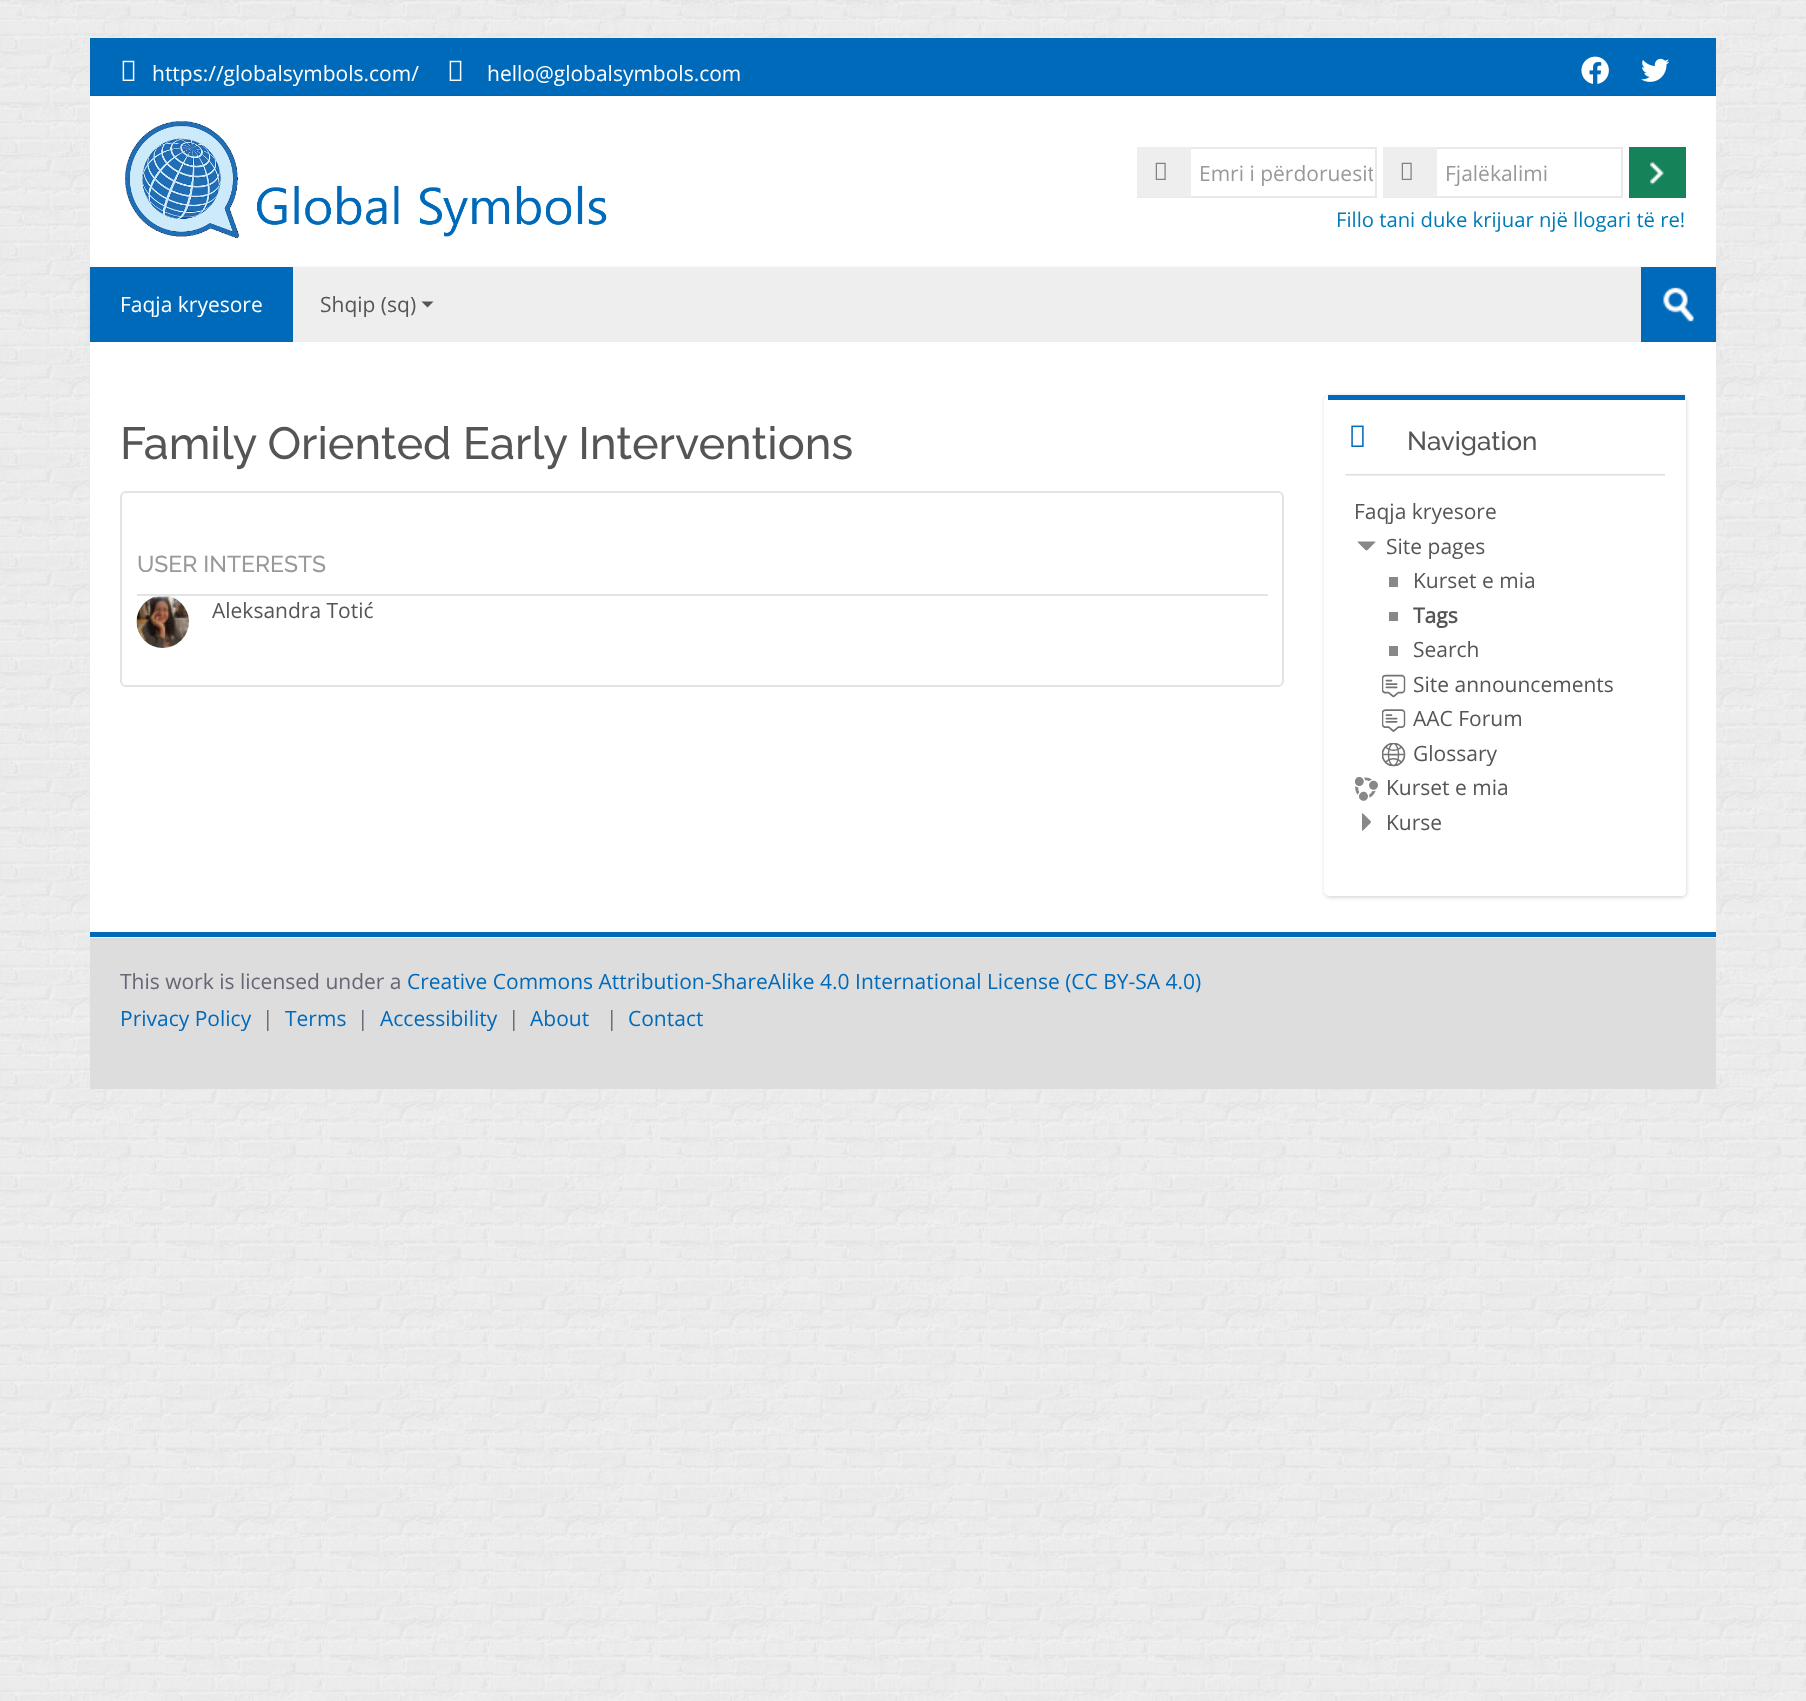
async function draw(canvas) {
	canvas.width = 1806;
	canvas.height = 1701;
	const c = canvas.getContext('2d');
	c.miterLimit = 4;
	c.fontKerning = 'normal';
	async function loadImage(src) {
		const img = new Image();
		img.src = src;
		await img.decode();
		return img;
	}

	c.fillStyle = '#fff';
	c.fillRect(0, 0, 1806, 1701);
	c.drawImage(await loadImage('img1.png'), 0, 0, 1806, 1701);
	c.fillStyle = '#006aba';
	c.fillRect(90, 38, 1626, 58);
	c.fillStyle = '#0000000d';
	c.fillRect(90, 95, 1626, 1);
	c.drawImage(await loadImage('img2.png'), 122, 60, 13, 21);
	c.font = '21px Open Sans';
	c.fillStyle = '#fff';
	c.fillText('https://globalsymbols.com/', 152, 81);
	c.drawImage(await loadImage('img2.png'), 449, 60, 13, 21);
	c.fillText('hello@globalsymbols.com', 487, 81);
	c.drawImage(await loadImage('img3.png'), 1581, 56, 28, 28);
	c.drawImage(await loadImage('img4.png'), 1641, 58, 29, 24);
	c.fillRect(90, 96, 1626, 171);
	c.drawImage(await loadImage('img5.png'), 125, 121, 482, 117);
	c.strokeStyle = '#e9e9e9';
	c.lineWidth = 2;
	c.strokeRect(1138, 148, 238, 49);
	c.fillStyle = '#eee';
	c.fillRect(1137, 147, 54, 50);
	c.drawImage(await loadImage('img6.png'), 1155, 162, 11, 18);
	c.save();
	c.beginPath();
	c.rect(1199, 159, 174, 29);
	c.clip();
	c.fillStyle = '#999';
	c.fillText('Emri i përdoruesit', 1199, 181);
	c.restore();
	c.strokeRect(1384, 148, 238, 49);
	c.fillRect(1383, 147, 54, 50);
	c.drawImage(await loadImage('img6.png'), 1401, 162, 11, 18);
	c.fillStyle = '#999';
	c.fillText('Fjalëkalimi', 1445, 181);
	c.fillStyle = '#158259';
	c.fillRect(1629, 147, 57, 51);
	c.drawImage(await loadImage('img7.png'), 1650, 162, 14, 23);
	c.font = '20.25px Open Sans';
	c.fillStyle = '#017bb8';
	c.fillText('Fillo tani duke krijuar një llogari të re!', 1336, 227);
	c.fillStyle = '#00000012';
	c.filter = 'blur(3px)';
	c.beginPath();
	c.rect(90, 269, 1626, 75);
	c.fill();
	c.filter = 'none';
	c.fillStyle = '#eee';
	c.fillRect(293, 267, 1348, 75);
	c.fillStyle = '#006aba';
	c.fillRect(90, 267, 203, 75);
	c.font = '21px Open Sans';
	c.fillStyle = '#fff';
	c.fillText('Faqja kryesore', 120, 312);
	c.fillStyle = '#555';
	c.fillText('Shqip (sq)', 320, 312);
	c.beginPath();
	c.moveTo(421.5, 301.5);
	c.lineTo(433.5, 301.5);
	c.lineTo(427.5, 307.5);
	c.closePath();
	c.fill();
	c.fillStyle = '#006aba';
	c.fillRect(1641, 267, 75, 75);
	c.drawImage(await loadImage('img8.png'), 1663, 287, 31, 35);
	c.fillStyle = '#fff';
	c.fillRect(90, 342, 1626, 590);
	c.font = '100 45.1px Raleway';
	c.fillStyle = '#555';
	c.fillText('Family Oriented Early Interventions', 120, 459);
	c.beginPath();
	c.roundRect(121, 492, 1162, 194, 5);
	c.strokeStyle = '#e3e3e3';
	c.stroke();
	c.fillStyle = '#e3e3e3';
	c.fillRect(137, 594, 1131, 2);
	c.font = '100 23px Raleway';
	c.fillStyle = '#999';
	c.fillText('USER INTERESTS', 137, 572);
	c.drawImage(await loadImage('img9.png'), 136, 596, 53, 52);
	c.font = '21px Open Sans';
	c.fillStyle = '#555';
	c.fillText('Aleksandra Totić', 212, 618);
	c.save();
	c.beginPath();
	c.moveTo(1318, 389);
	c.lineTo(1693, 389);
	c.lineTo(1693, 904);
	c.lineTo(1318, 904);
	c.closePath();
	c.moveTo(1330, 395);
	c.lineTo(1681, 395);
	c.bezierCurveTo(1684, 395, 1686, 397, 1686, 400);
	c.lineTo(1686, 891);
	c.bezierCurveTo(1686, 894, 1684, 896, 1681, 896);
	c.lineTo(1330, 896);
	c.bezierCurveTo(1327, 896, 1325, 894, 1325, 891);
	c.lineTo(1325, 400);
	c.bezierCurveTo(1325, 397, 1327, 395, 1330, 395);
	c.closePath();
	c.clip('evenodd');
	c.fillStyle = '#00000033';
	c.filter = 'blur(2px)';
	c.beginPath();
	c.roundRect(1325, 396, 361, 501, 5);
	c.fill();
	c.filter = 'none';
	c.restore();
	c.fillStyle = '#fff';
	c.beginPath();
	c.moveTo(1329, 399);
	c.lineTo(1686, 399);
	c.lineTo(1686, 891);
	c.bezierCurveTo(1686, 893, 1684, 896, 1682, 896);
	c.lineTo(1329, 896);
	c.bezierCurveTo(1327, 896, 1324, 893, 1324, 891);
	c.lineTo(1324, 399);
	c.closePath();
	c.fill();
	c.fillStyle = '#006aba';
	c.fillRect(1328, 395, 357, 5);
	c.drawImage(await loadImage('img10.png'), 1345, 474, 320, 2);
	c.drawImage(await loadImage('img11.png'), 1351, 425, 13, 22);
	c.font = '100 26px Raleway';
	c.fillStyle = '#555';
	c.fillText('Navigation', 1407, 450);
	c.font = '21px Open Sans';
	c.fillText('Faqja kryesore', 1354, 519);
	c.drawImage(await loadImage('img12.png'), 1357, 541, 19, 10);
	c.fillText('Site pages', 1386, 554);
	c.fillText('Kurset e mia', 1413, 588);
	c.fillStyle = '#888';
	c.fillRect(1389, 577, 9, 10);
	c.font = 'bold 21px Open Sans';
	c.fillStyle = '#555';
	c.fillText('Tags', 1413, 623);
	c.fillStyle = '#888';
	c.fillRect(1389, 612, 9, 9);
	c.font = '21px Open Sans';
	c.fillStyle = '#555';
	c.fillText('Search', 1413, 657);
	c.fillStyle = '#888';
	c.fillRect(1389, 646, 9, 10);
	c.drawImage(await loadImage('img13.png'), 1382, 674, 24, 24);
	c.fillStyle = '#555';
	c.fillText('Site announcements', 1413, 692);
	c.drawImage(await loadImage('img14.png'), 1382, 709, 24, 23);
	c.fillText('AAC Forum', 1413, 726);
	c.drawImage(await loadImage('img15.png'), 1382, 743, 24, 24);
	c.fillText('Glossary', 1413, 761);
	c.drawImage(await loadImage('img16.png'), 1355, 777, 23, 24);
	c.fillText('Kurset e mia', 1386, 795);
	c.drawImage(await loadImage('img17.png'), 1362, 813, 9, 18);
	c.fillText('Kurse', 1386, 830);
	for (const [x, y, w, h, color] of [
		[90, 937, 1626, 1, '#f5f5f5'],
		[90, 932, 1626, 5, '#006aba'],
		[90, 940, 1626, 149, '#ddd'],
		[90, 938, 1626, 2, '#dadada'],
	]) {
		c.fillStyle = color;
		c.fillRect(x, y, w, h);
	}
	c.fillStyle = '#667';
	c.fillText('This work is licensed under a', 120, 989);
	c.fillStyle = '#006aba';
	c.fillText('Creative Commons Attribution-ShareAlike 4.0 International License (CC BY-SA 4.0)', 407, 989);
	c.fillText('Privacy Policy', 120, 1026);
	c.fillStyle = '#667';
	c.fillText('|', 262, 1026);
	c.fillStyle = '#006aba';
	c.fillText('Terms', 285, 1026);
	c.fillStyle = '#667';
	c.fillText('|', 357, 1026);
	c.fillStyle = '#006aba';
	c.fillText('Accessibility', 380, 1026);
	c.fillStyle = '#667';
	c.fillText('|', 508, 1026);
	c.fillStyle = '#006aba';
	c.fillText('About', 530, 1026);
	c.fillStyle = '#667';
	c.fillText('|', 606, 1026);
	c.fillStyle = '#006aba';
	c.fillText('Contact', 628, 1026);
}

draw(document.querySelector('canvas'));
